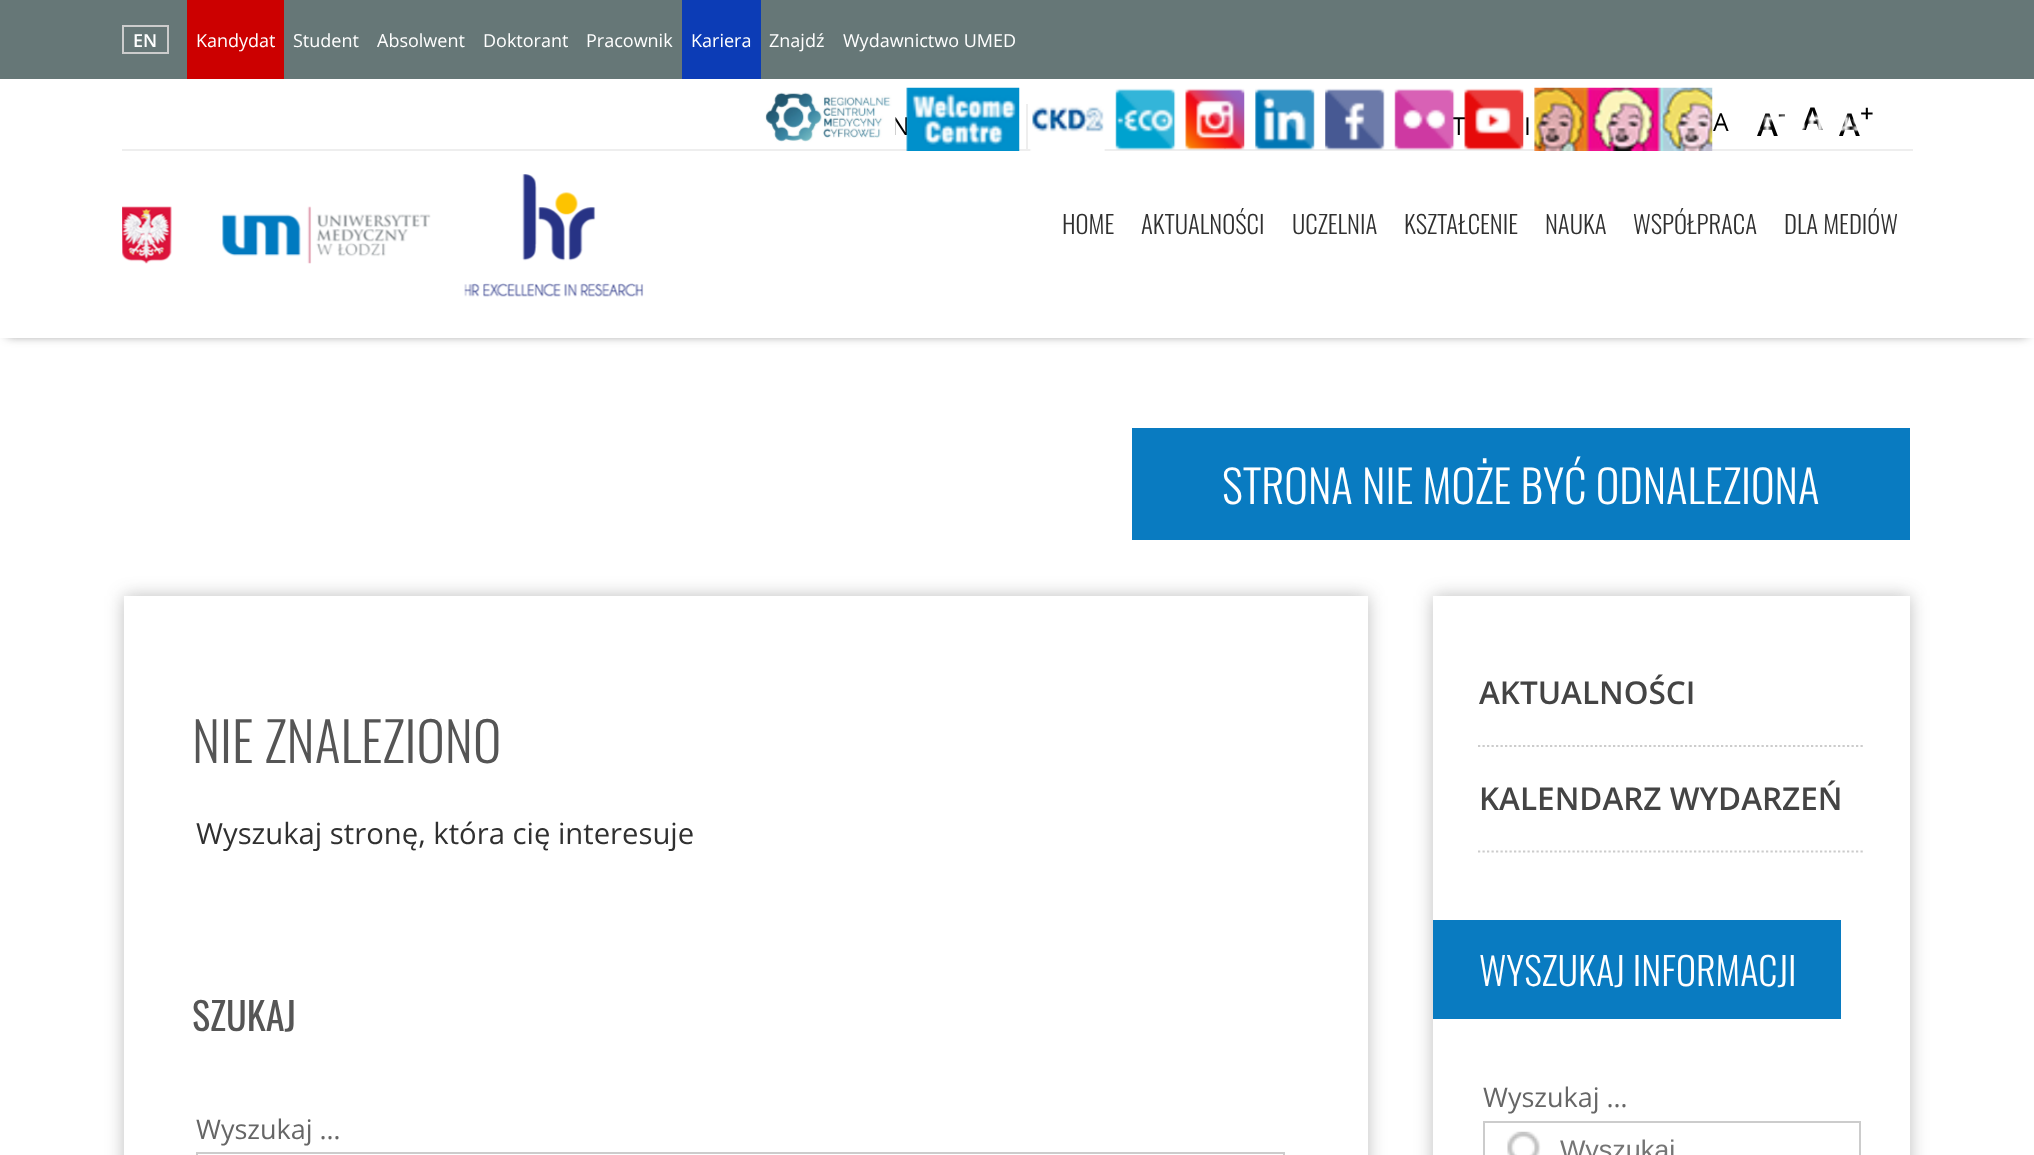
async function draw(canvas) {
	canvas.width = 2034;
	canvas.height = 1155;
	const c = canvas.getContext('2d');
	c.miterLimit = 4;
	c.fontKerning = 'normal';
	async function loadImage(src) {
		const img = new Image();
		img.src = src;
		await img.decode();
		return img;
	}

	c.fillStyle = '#fff';
	c.fillRect(0, 0, 2034, 1155);
	c.fillStyle = '#323232b0';
	c.filter = 'blur(5.5px)';
	c.beginPath();
	c.rect(7, 90, 2020, 245);
	c.fill();
	c.filter = 'none';
	c.fillStyle = '#677';
	c.fillRect(0, 0, 2034, 79);
	c.strokeStyle = '#ccc';
	c.lineWidth = 2;
	c.strokeRect(123, 26, 45, 27);
	c.font = '600 18px Open Sans';
	c.fillStyle = '#fff';
	c.fillText('EN', 133, 47);
	c.fillStyle = '#c00';
	c.fillRect(187, 0, 97, 79);
	c.font = '18px Open Sans';
	c.fillStyle = '#fff';
	for (const [text, x, y] of [
		['Kandydat', 196, 47],
		['Student', 293, 47],
		['Absolwent', 377, 47],
		['Doktorant', 483, 47],
		['Pracownik', 586, 47],
	]) {
		c.fillText(text, x, y);
	}
	c.fillStyle = '#0c3cb6';
	c.fillRect(682, 0, 79, 79);
	c.fillStyle = '#fff';
	for (const [text, x, y] of [
		['Kariera', 691, 47],
		['Znajdź', 769, 47],
		['Wydawnictwo UMED', 843, 47],
	]) {
		c.fillText(text, x, y);
	}
	c.fillRect(0, 79, 2034, 259);
	c.font = '24.75px Open Sans';
	c.fillStyle = '#000';
	c.fillText('N', 891, 135);
	c.drawImage(await loadImage('img1.png'), 765, 92, 132, 50);
	c.fillStyle = '#eee';
	c.fillRect(122, 149, 1791, 2);
	c.drawImage(await loadImage('img2.png'), 906, 87, 114, 64);
	c.drawImage(await loadImage('img3.png'), 1030, 106, 75, 45);
	c.drawImage(await loadImage('img4.png'), 1115, 88, 61, 62);
	c.fillRect(1224, 147, 2, 2);
	c.drawImage(await loadImage('img5.png'), 1185, 88, 60, 62);
	c.drawImage(await loadImage('img6.png'), 1255, 88, 60, 62);
	c.drawImage(await loadImage('img7.png'), 1325, 88, 60, 62);
	c.fillStyle = '#000';
	c.fillText('T', 1452, 135);
	c.drawImage(await loadImage('img8.png'), 1394, 88, 61, 62);
	c.drawImage(await loadImage('img9.png'), 1464, 88, 60, 62);
	c.drawImage(await loadImage('img10.png'), 1534, 87, 179, 64);
	c.font = '600 31.5px Open Sans';
	c.fillText('A', 1757, 136);
	c.font = '600 24px Open Sans';
	c.fillText('-', 1778, 122);
	c.font = '600 31.5px Open Sans';
	c.fillText('A', 1802, 130);
	c.fillText('A', 1839, 136);
	c.font = '600 24px Open Sans';
	c.fillText('+', 1860, 122);
	c.drawImage(await loadImage('img11.png'), 1758, 114, 106, 18);
	c.fillStyle = '#eee';
	c.fillRect(1026, 104, 2, 45);
	c.font = '24.75px Open Sans';
	c.fillStyle = '#000';
	c.fillText('I', 1524, 135);
	c.fillText('A', 1713, 131);
	c.drawImage(await loadImage('img12.png'), 122, 206, 50, 58);
	c.drawImage(await loadImage('img13.png'), 222, 206, 209, 58);
	c.drawImage(await loadImage('img14.png'), 464, 174, 180, 123);
	c.font = '300 24.75px Oswald';
	c.fillStyle = '#303030';
	for (const [text, x, y] of [
		['HOME', 1062, 234],
		['AKTUALNOŚCI', 1141, 234],
		['UCZELNIA', 1292, 234],
		['KSZTAŁCENIE', 1404, 234],
		['NAUKA', 1545, 234],
		['WSPÓŁPRACA', 1633, 234],
		['DLA MEDIÓW', 1784, 234],
	]) {
		c.fillText(text, x, y);
	}
	c.fillStyle = '#097bc1';
	c.fillRect(1132, 428, 778, 112);
	c.font = '300 45px Oswald';
	c.fillStyle = '#fff';
	c.fillText('STRONA NIE MOŻE BYĆ ODNALEZIONA', 1222, 504);
	c.fillStyle = '#32323252';
	c.filter = 'blur(9px)';
	c.beginPath();
	c.rect(124, 596, 1244, 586);
	c.fill();
	c.filter = 'none';
	c.fillStyle = '#fff';
	c.fillRect(124, 596, 1244, 559);
	c.font = '300 54px Oswald';
	c.fillStyle = '#555';
	c.fillText('NIE ZNALEZIONO', 192, 763);
	c.font = '29.25px Open Sans';
	c.fillStyle = '#303030';
	c.fillText('Wyszukaj stronę, która cię interesuje', 196, 844);
	c.font = '38.25px Oswald';
	c.fillStyle = '#555';
	c.fillText('SZUKAJ', 192, 1031);
	c.font = '27px Open Sans';
	c.fillStyle = '#666';
	c.fillText('Wyszukaj …', 196, 1139);
	c.strokeRect(197, 1153, 1087, 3);
	c.fillStyle = '#32323252';
	c.filter = 'blur(9px)';
	c.beginPath();
	c.rect(1433, 596, 477, 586);
	c.fill();
	c.filter = 'none';
	c.fillStyle = '#fff';
	c.fillRect(1433, 596, 477, 559);
	c.beginPath();
	c.moveTo(1478, 746);
	c.lineTo(1865, 746);
	c.lineWidth = 2.2;
	c.setLineDash([2.25, 2.25]);
	c.stroke();
	c.font = '600 31.5px Open Sans';
	c.fillStyle = '#444';
	c.fillText('AKTUALNOŚCI', 1479, 704);
	c.beginPath();
	c.moveTo(1478, 851.5);
	c.lineTo(1865, 851.5);
	c.stroke();
	c.fillText('KALENDARZ WYDARZEŃ', 1479, 810);
	c.fillStyle = '#097bc1';
	c.fillRect(1433, 920, 408, 99);
	c.font = '300 38.25px Oswald';
	c.fillStyle = '#fff';
	c.fillText('WYSZUKAJ INFORMACJI', 1479, 986);
	c.font = '27px Open Sans';
	c.fillStyle = '#666';
	c.fillText('Wyszukaj …', 1483, 1107);
	c.drawImage(await loadImage('img15.png'), 1507, 1131, 34, 24);
	c.lineWidth = 2;
	c.setLineDash([]);
	c.strokeRect(1484, 1122, 376, 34);
	c.font = '27px Liberation Sans';
	c.fillStyle = '#757575';
	c.fillText('Wyszukaj', 1560, 1159);
}

draw(document.querySelector('canvas'));
